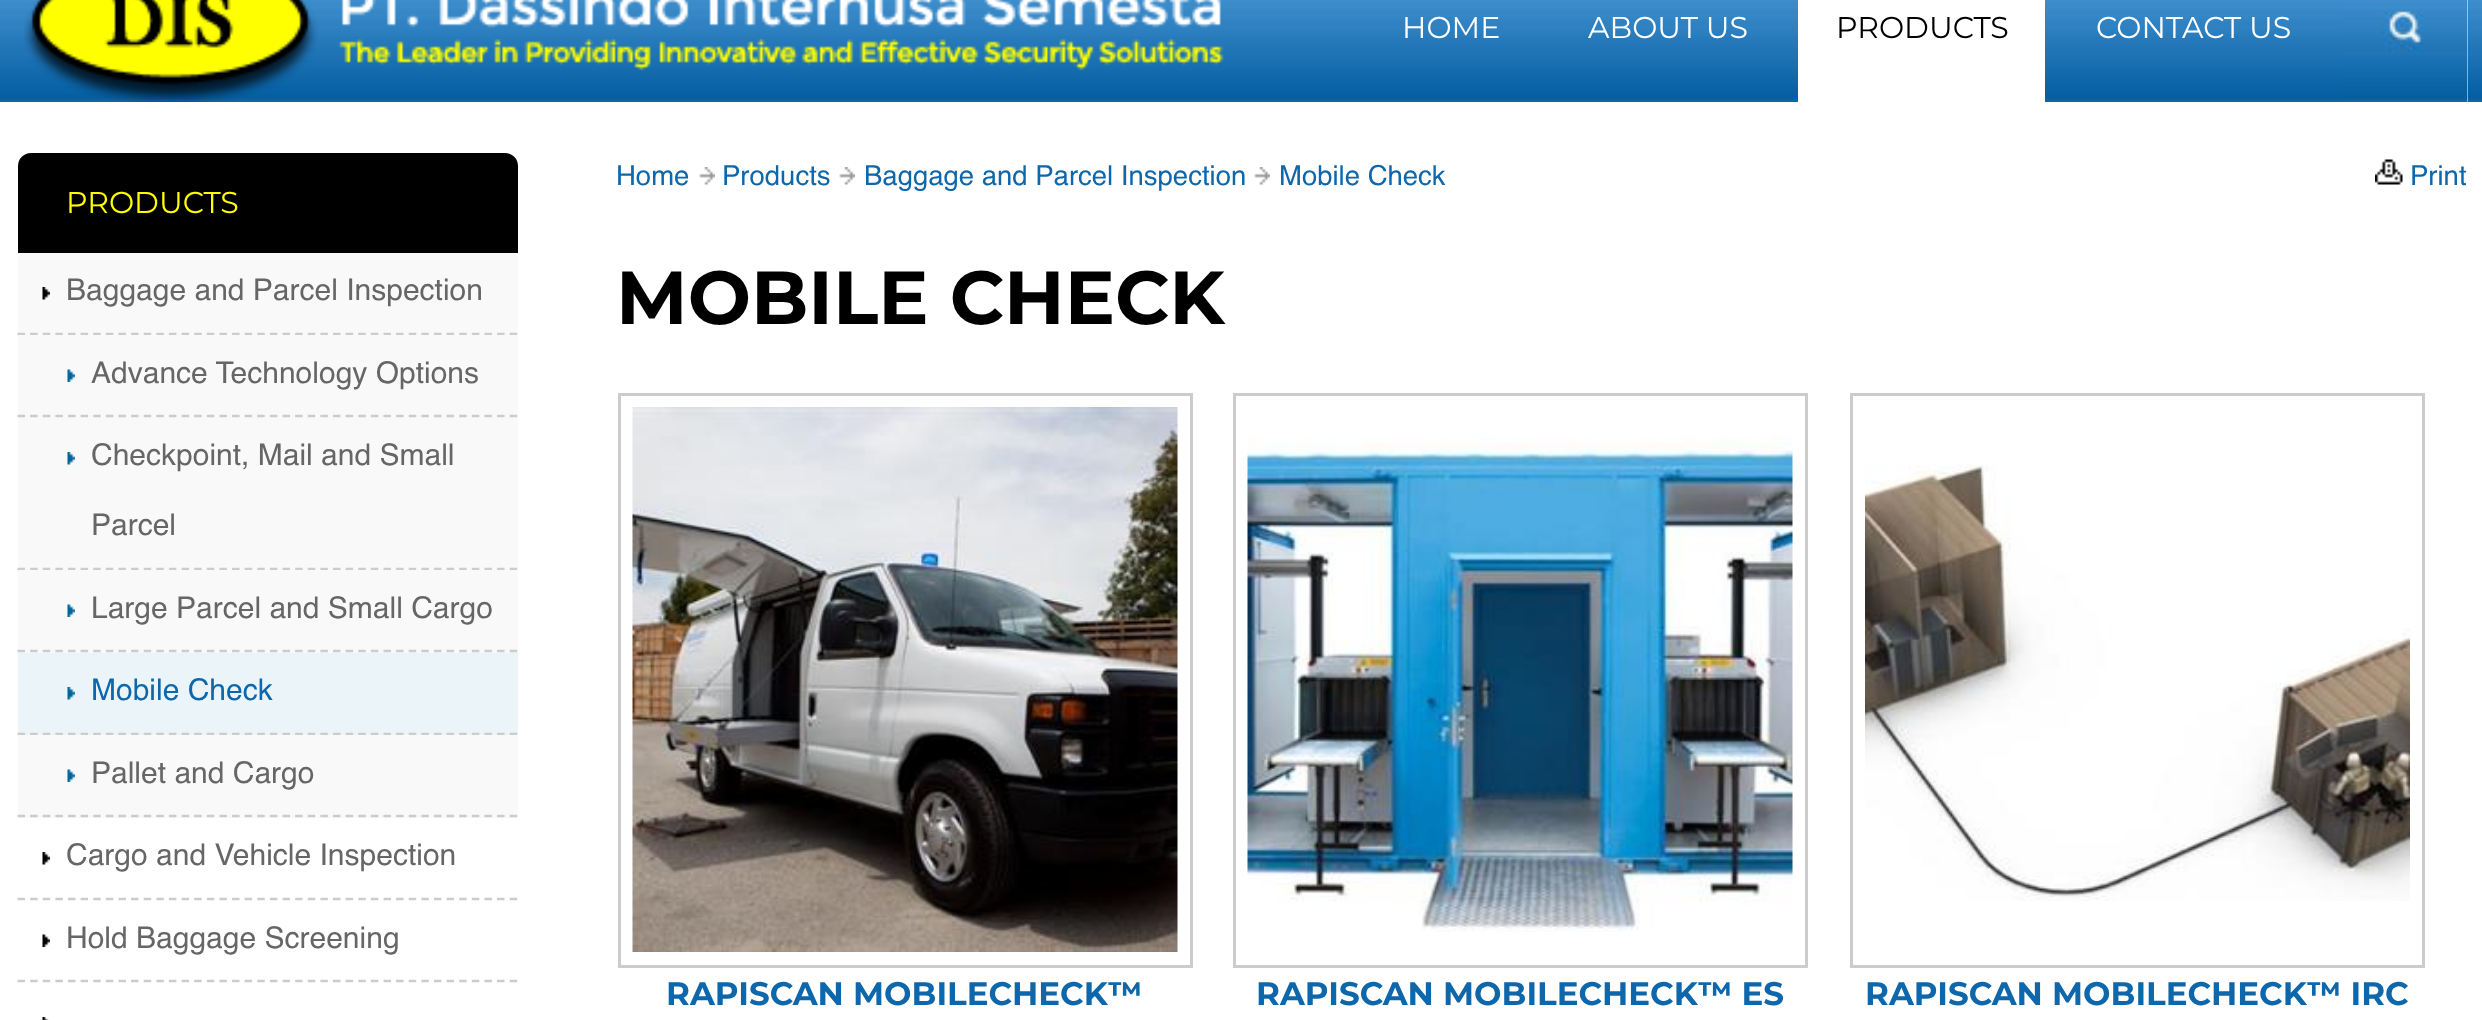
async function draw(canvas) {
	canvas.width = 2482;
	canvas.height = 1020;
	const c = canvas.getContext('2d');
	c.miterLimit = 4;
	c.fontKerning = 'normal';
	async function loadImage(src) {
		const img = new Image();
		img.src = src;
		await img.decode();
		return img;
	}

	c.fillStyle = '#fff';
	c.fillRect(0, 0, 2482, 1020);
	c.drawImage(await loadImage('img1.png'), 0, 0, 2482, 102);
	c.drawImage(await loadImage('img2.png'), 24, 0, 1200, 102);
	c.font = '30px Montserrat';
	c.fillText('HOME', 1402, 38);
	c.fillText('ABOUT US', 1588, 38);
	c.fillRect(1798, 0, 247, 102);
	c.fillStyle = '#000';
	c.fillText('PRODUCTS', 1836, 38);
	c.fillStyle = '#fff';
	c.fillText('CONTACT US', 2096, 38);
	c.fillRect(2343, 0, 125, 102);
	c.drawImage(await loadImage('img3.png'), 2343, 0, 125, 102);
	c.fillStyle = '#000';
	c.beginPath();
	c.roundRect(18, 153, 500, 100, [13, 13, 0, 0]);
	c.fill();
	c.fillStyle = '#ff0';
	c.fillText('PRODUCTS', 66, 213);
	c.fillStyle = '#f9f9f9';
	c.fillRect(18, 253, 500, 82);
	c.drawImage(await loadImage('img4.png'), 42, 287, 8, 13);
	c.beginPath();
	c.moveTo(17.5, 334);
	c.lineTo(517.5, 334);
	c.strokeStyle = '#ccc';
	c.lineWidth = 2.5;
	c.setLineDash([7.5, 5.12]);
	c.stroke();
	c.font = '30px Helvetica';
	c.fillStyle = '#666';
	c.fillText('Baggage and Parcel Inspection', 66, 300);
	c.fillStyle = '#f9f9f9';
	c.fillRect(18, 335, 500, 235);
	c.drawImage(await loadImage('img5.png'), 67, 369, 8, 13);
	c.beginPath();
	c.moveTo(17.5, 416);
	c.lineTo(517.5, 416);
	c.stroke();
	c.fillStyle = '#666';
	c.fillText('Advance Technology Options', 91, 383);
	c.drawImage(await loadImage('img6.png'), 67, 452, 8, 13);
	c.beginPath();
	c.moveTo(17.5, 569);
	c.lineTo(517.5, 569);
	c.stroke();
	c.fillText('Checkpoint, Mail and Small', 91, 465);
	c.fillText('Parcel', 91, 535);
	c.fillStyle = '#f9f9f9';
	c.fillRect(18, 570, 500, 83);
	c.drawImage(await loadImage('img5.png'), 67, 604, 8, 13);
	c.beginPath();
	c.moveTo(17.5, 651);
	c.lineTo(517.5, 651);
	c.stroke();
	c.fillStyle = '#666';
	c.fillText('Large Parcel and Small Cargo', 91, 618);
	c.fillStyle = '#ebf4f9';
	c.fillRect(18, 653, 500, 82);
	c.drawImage(await loadImage('img7.png'), 67, 687, 8, 13);
	c.beginPath();
	c.moveTo(17.5, 734);
	c.lineTo(517.5, 734);
	c.stroke();
	c.fillStyle = '#0e67aa';
	c.fillText('Mobile Check', 91, 700);
	c.fillStyle = '#f9f9f9';
	c.fillRect(18, 735, 500, 83);
	c.drawImage(await loadImage('img5.png'), 67, 769, 8, 13);
	c.beginPath();
	c.moveTo(17.5, 816);
	c.lineTo(517.5, 816);
	c.stroke();
	c.fillStyle = '#666';
	c.fillText('Pallet and Cargo', 91, 783);
	c.drawImage(await loadImage('img8.png'), 42, 852, 8, 13);
	c.beginPath();
	c.moveTo(17.5, 899);
	c.lineTo(517.5, 899);
	c.stroke();
	c.fillText('Cargo and Vehicle Inspection', 66, 865);
	c.drawImage(await loadImage('img9.png'), 42, 934, 8, 13);
	c.beginPath();
	c.moveTo(17.5, 981);
	c.lineTo(517.5, 981);
	c.stroke();
	c.fillText('Hold Baggage Screening', 66, 948);
	c.drawImage(await loadImage('img10.png'), 42, 1017, 7, 3);
	c.font = '27.5px Helvetica';
	c.fillStyle = '#0e67aa';
	c.fillText('Home', 616, 185);
	c.drawImage(await loadImage('img11.png'), 699, 167, 16, 18);
	c.fillText('Products', 722, 185);
	c.drawImage(await loadImage('img12.png'), 839, 167, 16, 18);
	c.fillText('Baggage and Parcel Inspection', 864, 185);
	c.drawImage(await loadImage('img11.png'), 1254, 167, 16, 18);
	c.fillText('Mobile Check', 1279, 185);
	c.drawImage(await loadImage('img13.png'), 2375, 159, 28, 26);
	c.fillText('Print', 2410, 185);
	c.font = 'bold 75px Montserrat';
	c.fillStyle = '#000';
	c.fillText('MOBILE CHECK', 616, 324);
	c.lineWidth = 3;
	c.setLineDash([]);
	c.strokeRect(619.5, 394.5, 572, 572);
	c.drawImage(await loadImage('img14.png'), 632, 407, 546, 545);
	c.font = 'bold 32.5px Montserrat';
	c.fillStyle = '#0e67aa';
	c.fillText('RAPISCAN MOBILECHECK™', 666, 1005);
	c.strokeRect(1234.5, 394.5, 572, 572);
	c.drawImage(await loadImage('img15.png'), 1247, 436, 546, 496);
	c.fillText('RAPISCAN MOBILECHECK™ ES', 1256, 1005);
	c.strokeRect(1851.5, 394.5, 572, 572);
	c.drawImage(await loadImage('img16.png'), 1865, 464, 545, 437);
	c.fillText('RAPISCAN MOBILECHECK™ IRC', 1865, 1005);
}

draw(document.querySelector('canvas'));
